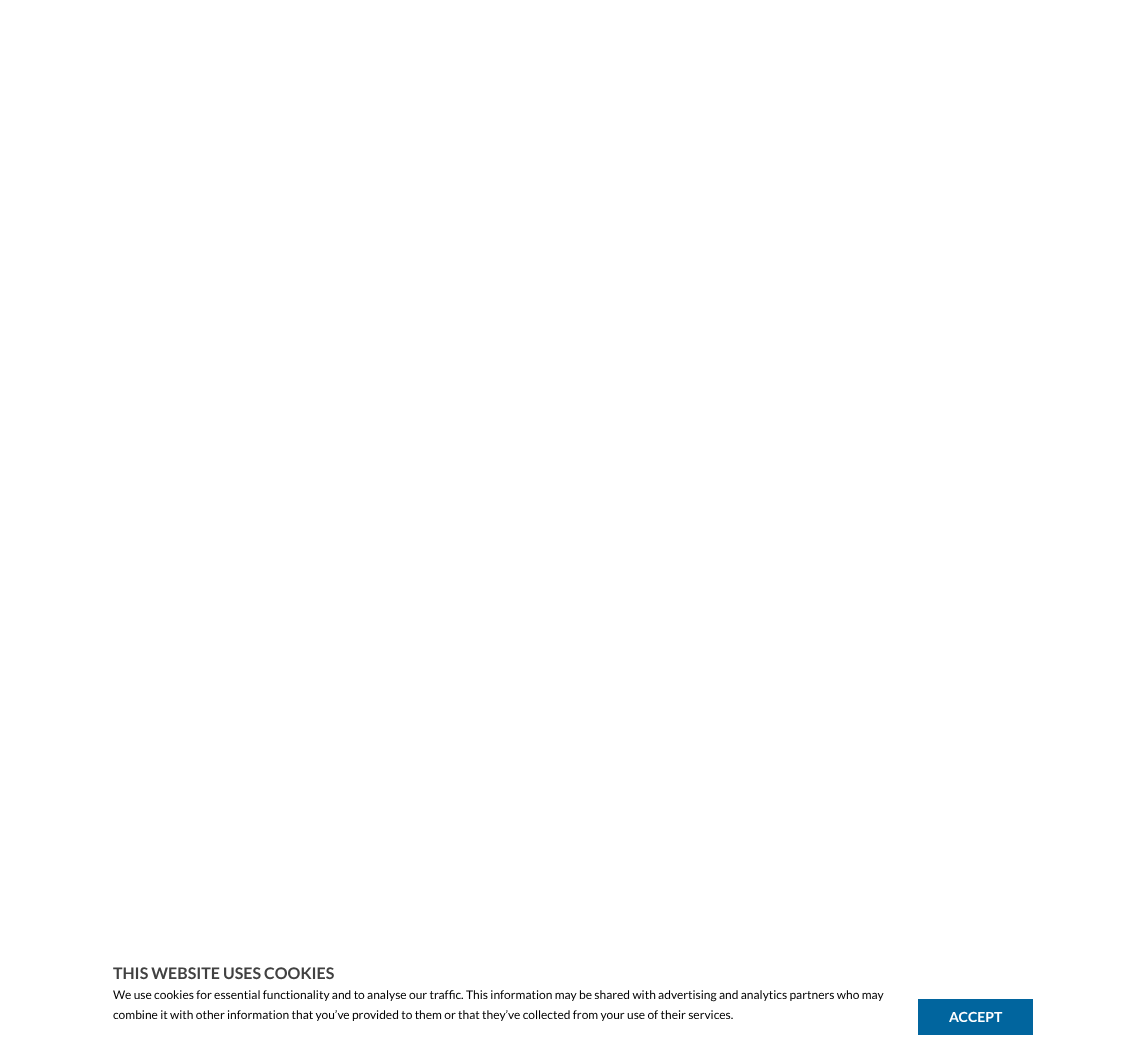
async function draw(canvas) {
	canvas.width = 1146;
	canvas.height = 1045;
	const c = canvas.getContext('2d');
	c.miterLimit = 4;
	c.fontKerning = 'normal';

	c.fillStyle = '#fff';
	c.fillRect(0, 0, 1146, 1045);
	c.font = 'bold 16px Lato';
	c.fillStyle = '#414141';
	c.fillText('THIS WEBSITE USES COOKIES', 113, 979);
	c.font = '12px Lato';
	c.fillStyle = '#000';
	c.fillText('We use cookies for essential functionality and to analyse our traffic. This information may be shared with advertising and analytics partners who may', 113, 999);
	c.fillText('combine it with other information that you’ve provided to them or that they’ve collected from your use of their services.', 113, 1019);
	c.fillStyle = '#01659e';
	c.fillRect(918, 999, 115, 36);
	c.font = 'bold 14px Lato';
	c.fillStyle = '#fff';
	c.fillText('ACCEPT', 949, 1022);
}

draw(document.querySelector('canvas'));
